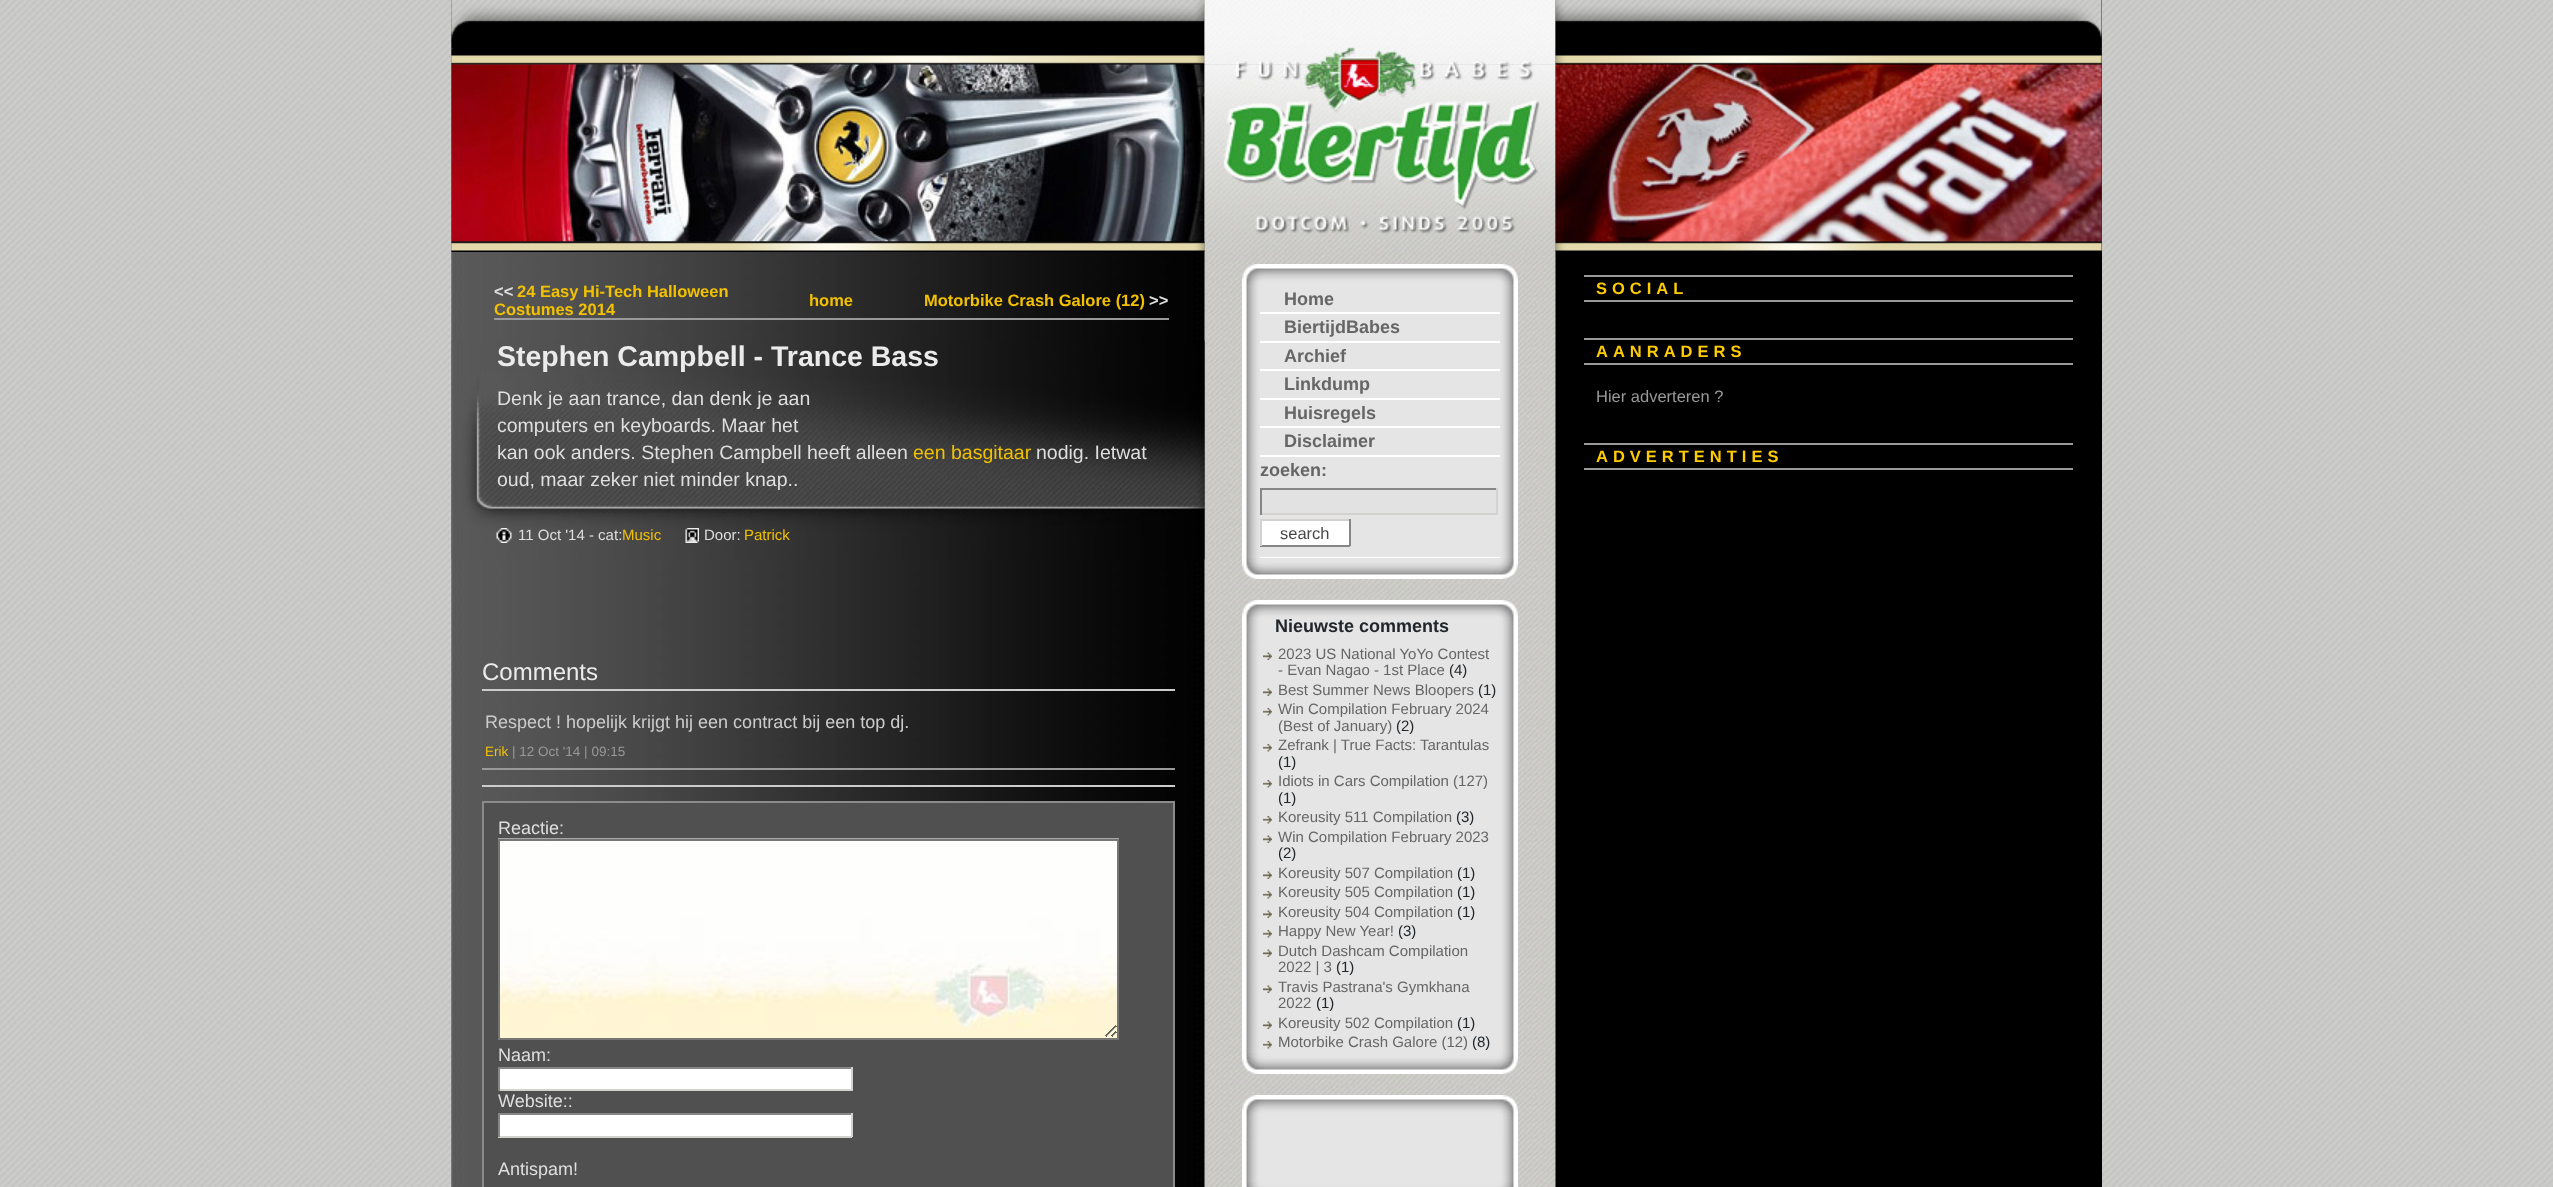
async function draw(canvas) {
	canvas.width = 2553;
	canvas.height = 1187;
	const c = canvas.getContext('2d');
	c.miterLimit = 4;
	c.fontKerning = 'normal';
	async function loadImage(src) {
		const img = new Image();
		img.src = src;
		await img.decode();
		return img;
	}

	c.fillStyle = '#fff';
	c.fillRect(0, 0, 2553, 1187);
	c.drawImage(await loadImage('img1.png'), 0, 0, 2553, 1187);
	c.drawImage(await loadImage('img2.png'), 451, 0, 1651, 1187);
	c.drawImage(await loadImage('img3.png'), 451, 0, 1651, 1187);
	c.drawImage(await loadImage('img4.png'), 451, 0, 754, 65);
	c.drawImage(await loadImage('img5.png'), 1204, 0, 352, 65);
	c.drawImage(await loadImage('img6.png'), 1555, 0, 547, 65);
	c.drawImage(await loadImage('img11.png'), 1204, 241, 352, 11);
	c.drawImage(await loadImage('img7.png'), 451, 64, 754, 178);
	c.drawImage(await loadImage('img12.png'), 1555, 241, 547, 11);
	c.drawImage(await loadImage('img8.png'), 1204, 64, 352, 178);
	c.drawImage(await loadImage('img9.png'), 1555, 64, 547, 178);
	c.drawImage(await loadImage('img10.png'), 451, 241, 754, 11);
	c.fillStyle = '#999';
	c.fillRect(494, 318, 675, 2);
	c.font = 'bold 16.5px Liberation Sans';
	c.fillStyle = '#dfdfdf';
	c.fillText('<<', 494, 297);
	c.fillStyle = '#f2c100';
	for (const [text, x, y] of [
		['24 Easy Hi-Tech Halloween', 517, 297],
		['Costumes 2014', 494, 315],
		['home', 809, 306],
		['Motorbike Crash Galore (12)', 924, 306],
	]) {
		c.fillText(text, x, y);
	}
	c.fillStyle = '#dfdfdf';
	c.fillText('>>', 1149, 306);
	c.drawImage(await loadImage('img13.png'), 451, 340, 754, 220);
	c.font = 'bold 28.5px Liberation Sans';
	c.fillStyle = '#ebebeb';
	c.fillText('Stephen Campbell - Trance Bass', 497, 366);
	c.font = '19.5px Liberation Sans';
	c.fillStyle = '#dfdfdf';
	for (const [text, x, y] of [
		['Denk je aan trance, dan denk je aan', 497, 405],
		['computers en keyboards. Maar het', 497, 432],
		['kan ook anders. Stephen Campbell heeft alleen', 497, 459],
	]) {
		c.fillText(text, x, y);
	}
	c.fillStyle = '#f2c100';
	c.fillText('een basgitaar', 913, 459);
	c.fillStyle = '#dfdfdf';
	c.fillText('nodig. Ietwat', 1036, 459);
	c.fillText('oud, maar zeker niet minder knap..', 497, 486);
	c.drawImage(await loadImage('img14.png'), 496, 528, 16, 15);
	c.font = '15px Liberation Sans';
	c.fillText('11 Oct \'14 - cat:', 518, 540);
	c.fillStyle = '#f2c100';
	c.fillText('Music', 622, 540);
	c.drawImage(await loadImage('img15.png'), 685, 528, 14, 15);
	c.fillStyle = '#dfdfdf';
	c.fillText('Door:', 704, 540);
	c.fillStyle = '#f2c100';
	c.fillText('Patrick', 744, 540);
	c.fillStyle = '#ccc';
	c.fillRect(482, 689, 693, 2);
	c.font = '24px Liberation Sans';
	c.fillStyle = '#ebebeb';
	c.fillText('Comments', 482, 680);
	c.fillStyle = '#999';
	c.fillRect(482, 768, 693, 2);
	c.font = '18px Liberation Sans';
	c.fillStyle = '#ccc';
	c.fillText('Respect ! hopelijk krijgt hij een contract bij een top dj.', 485, 728);
	c.font = '13.5px Liberation Sans';
	c.fillStyle = '#f2c100';
	c.fillText('Erik', 485, 756);
	c.fillStyle = '#999';
	c.fillText('| 12 Oct \'14 | 09:15', 512, 756);
	c.fillStyle = '#ccc';
	c.fillRect(482, 785, 693, 2);
	c.fillStyle = '#505050';
	c.beginPath();
	c.rect(483, 802, 691, 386);
	c.fill();
	c.strokeStyle = '#8b8b8b';
	c.lineWidth = 2;
	c.stroke();
	c.font = '18px Liberation Sans';
	c.fillStyle = '#dfdfdf';
	c.fillText('Reactie:', 498, 834);
	c.drawImage(await loadImage('img16.png'), 498, 838, 621, 200);
	c.strokeStyle = '#767676';
	c.strokeRect(499, 840, 619, 199);
	c.fillText('Naam:', 498, 1061);
	for (const [x, y, w, h, color] of [
		[500, 1069, 351, 20, '#fff'],
		[498, 1067, 354, 2, '#868686'],
		[851, 1067, 2, 24, '#d4d2cf'],
		[498, 1089, 354, 2, '#d4d2cf'],
		[498, 1067, 2, 24, '#868686'],
	]) {
		c.fillStyle = color;
		c.fillRect(x, y, w, h);
	}
	c.fillStyle = '#dfdfdf';
	c.fillText('Website::', 498, 1107);
	for (const [x, y, w, h, color] of [
		[500, 1115, 351, 21, '#fff'],
		[498, 1113, 354, 2, '#868686'],
		[851, 1113, 2, 24, '#d4d2cf'],
		[498, 1136, 354, 2, '#d4d2cf'],
		[498, 1113, 2, 24, '#868686'],
	]) {
		c.fillStyle = color;
		c.fillRect(x, y, w, h);
	}
	c.fillStyle = '#dfdfdf';
	c.fillText('Antispam!', 498, 1175);
	c.drawImage(await loadImage('img17.png'), 1242, 264, 276, 21);
	c.drawImage(await loadImage('img18.png'), 1242, 285, 276, 273);
	c.fillStyle = '#fff';
	c.fillRect(1260, 312, 240, 2);
	c.font = 'bold 18px Liberation Sans';
	c.fillStyle = '#666';
	c.fillText('Home', 1284, 305);
	c.fillStyle = '#fff';
	c.fillRect(1260, 341, 240, 2);
	c.fillStyle = '#666';
	c.fillText('BiertijdBabes', 1284, 333);
	c.fillStyle = '#fff';
	c.fillRect(1260, 369, 240, 2);
	c.fillStyle = '#666';
	c.fillText('Archief', 1284, 362);
	c.fillStyle = '#fff';
	c.fillRect(1260, 398, 240, 2);
	c.fillStyle = '#666';
	c.fillText('Linkdump', 1284, 390);
	c.fillStyle = '#fff';
	c.fillRect(1260, 426, 240, 2);
	c.fillStyle = '#666';
	c.fillText('Huisregels', 1284, 419);
	c.fillStyle = '#fff';
	c.fillRect(1260, 455, 240, 2);
	c.fillStyle = '#666';
	c.fillText('Disclaimer', 1284, 447);
	c.fillStyle = '#fff';
	c.fillRect(1260, 557, 240, 1);
	c.fillStyle = '#666';
	c.fillText('zoeken:', 1260, 476);
	for (const [x, y, w, h, color] of [
		[1262, 490, 234, 23, '#e2e2e2'],
		[1260, 488, 237, 2, '#868686'],
		[1496, 488, 2, 27, '#d4d2cf'],
		[1260, 513, 237, 2, '#d4d2cf'],
		[1260, 488, 2, 27, '#868686'],
		[1262, 521, 87, 24, '#fff'],
		[1260, 519, 90, 2, '#d4d2cf'],
		[1349, 519, 2, 27, '#868686'],
		[1260, 545, 90, 2, '#868686'],
		[1260, 519, 2, 27, '#d4d2cf'],
	]) {
		c.fillStyle = color;
		c.fillRect(x, y, w, h);
	}
	c.font = '16.5px Liberation Sans';
	c.fillStyle = '#494949';
	c.fillText('search', 1280, 539);
	c.drawImage(await loadImage('img19.png'), 1242, 558, 276, 21);
	c.drawImage(await loadImage('img20.png'), 1242, 600, 276, 45);
	c.font = 'bold 18px Liberation Sans';
	c.fillStyle = '#21262a';
	c.fillText('Nieuwste comments', 1275, 632);
	c.drawImage(await loadImage('img21.png'), 1242, 645, 276, 408);
	c.drawImage(await loadImage('img22.png'), 1263, 652, 9, 8);
	c.font = '15px Liberation Sans';
	c.fillStyle = '#666';
	c.fillText('2023 US National YoYo Contest', 1278, 659);
	c.fillText('- Evan Nagao - 1st Place', 1278, 675);
	c.fillStyle = '#21262a';
	c.fillText('(4)', 1449, 675);
	c.drawImage(await loadImage('img22.png'), 1263, 688, 9, 8);
	c.fillStyle = '#666';
	c.fillText('Best Summer News Bloopers', 1278, 695);
	c.fillStyle = '#21262a';
	c.fillText('(1)', 1478, 695);
	c.drawImage(await loadImage('img23.png'), 1263, 708, 9, 8);
	c.fillStyle = '#666';
	c.fillText('Win Compilation February 2024', 1278, 714);
	c.fillText('(Best of January)', 1278, 731);
	c.fillStyle = '#21262a';
	c.fillText('(2)', 1396, 731);
	c.drawImage(await loadImage('img23.png'), 1263, 744, 9, 8);
	c.fillStyle = '#666';
	c.fillText('Zefrank | True Facts: Tarantulas', 1278, 750);
	c.fillStyle = '#21262a';
	c.fillText('(1)', 1278, 767);
	c.drawImage(await loadImage('img23.png'), 1263, 780, 9, 8);
	c.fillStyle = '#666';
	c.fillText('Idiots in Cars Compilation (127)', 1278, 786);
	c.fillStyle = '#21262a';
	c.fillText('(1)', 1278, 803);
	c.drawImage(await loadImage('img23.png'), 1263, 816, 9, 8);
	c.fillStyle = '#666';
	c.fillText('Koreusity 511 Compilation', 1278, 822);
	c.fillStyle = '#21262a';
	c.fillText('(3)', 1456, 822);
	c.drawImage(await loadImage('img22.png'), 1263, 835, 9, 8);
	c.fillStyle = '#666';
	c.fillText('Win Compilation February 2023', 1278, 842);
	c.fillStyle = '#21262a';
	c.fillText('(2)', 1278, 858);
	c.drawImage(await loadImage('img22.png'), 1263, 871, 9, 8);
	c.fillStyle = '#666';
	c.fillText('Koreusity 507 Compilation', 1278, 878);
	c.fillStyle = '#21262a';
	c.fillText('(1)', 1457, 878);
	c.drawImage(await loadImage('img23.png'), 1263, 891, 9, 8);
	c.fillStyle = '#666';
	c.fillText('Koreusity 505 Compilation', 1278, 897);
	c.fillStyle = '#21262a';
	c.fillText('(1)', 1457, 897);
	c.drawImage(await loadImage('img22.png'), 1263, 910, 9, 8);
	c.fillStyle = '#666';
	c.fillText('Koreusity 504 Compilation', 1278, 917);
	c.fillStyle = '#21262a';
	c.fillText('(1)', 1457, 917);
	c.drawImage(await loadImage('img23.png'), 1263, 930, 9, 8);
	c.fillStyle = '#666';
	c.fillText('Happy New Year!', 1278, 936);
	c.fillStyle = '#21262a';
	c.fillText('(3)', 1398, 936);
	c.drawImage(await loadImage('img22.png'), 1263, 949, 9, 8);
	c.fillStyle = '#666';
	c.fillText('Dutch Dashcam Compilation', 1278, 956);
	c.fillText('2022 | 3', 1278, 972);
	c.fillStyle = '#21262a';
	c.fillText('(1)', 1336, 972);
	c.drawImage(await loadImage('img22.png'), 1263, 985, 9, 8);
	c.fillStyle = '#666';
	c.fillText('Travis Pastrana\'s Gymkhana', 1278, 992);
	c.fillText('2022', 1278, 1008);
	c.fillStyle = '#21262a';
	c.fillText('(1)', 1316, 1008);
	c.drawImage(await loadImage('img22.png'), 1263, 1021, 9, 8);
	c.fillStyle = '#666';
	c.fillText('Koreusity 502 Compilation', 1278, 1028);
	c.fillStyle = '#21262a';
	c.fillText('(1)', 1457, 1028);
	c.drawImage(await loadImage('img23.png'), 1263, 1041, 9, 8);
	c.fillStyle = '#666';
	c.fillText('Motorbike Crash Galore (12)', 1278, 1047);
	c.fillStyle = '#21262a';
	c.fillText('(8)', 1472, 1047);
	c.drawImage(await loadImage('img24.png'), 1242, 1053, 276, 21);
	c.drawImage(await loadImage('img25.png'), 1242, 1095, 276, 45);
	c.drawImage(await loadImage('img26.png'), 1242, 1140, 276, 42);
	c.drawImage(await loadImage('img27.png'), 1242, 1182, 276, 5);
	for (const [x, y, w, h, color] of [
		[2101, 252, 1, 935, '#000'],
		[1584, 275, 489, 2, '#999'],
		[1584, 300, 489, 2, '#999'],
	]) {
		c.fillStyle = color;
		c.fillRect(x, y, w, h);
	}
	c.letterSpacing = '5px';
	c.font = 'bold 16.5px Liberation Sans';
	c.fillStyle = '#fc0';
	c.fillText('SOCIAL', 1596, 294);
	c.fillStyle = '#999';
	c.fillRect(1584, 338, 489, 2);
	c.fillRect(1584, 363, 489, 2);
	c.fillStyle = '#fc0';
	c.fillText('AANRADERS', 1596, 357);
	c.letterSpacing = '0px';
	c.font = '16.5px Liberation Sans';
	c.fillStyle = '#999';
	c.fillText('Hier adverteren ?', 1596, 402);
	c.fillRect(1584, 443, 489, 2);
	c.fillRect(1584, 468, 489, 2);
	c.letterSpacing = '5px';
	c.font = 'bold 16.5px Liberation Sans';
	c.fillStyle = '#fc0';
	c.fillText('ADVERTENTIES', 1596, 462);
}

draw(document.querySelector('canvas'));
